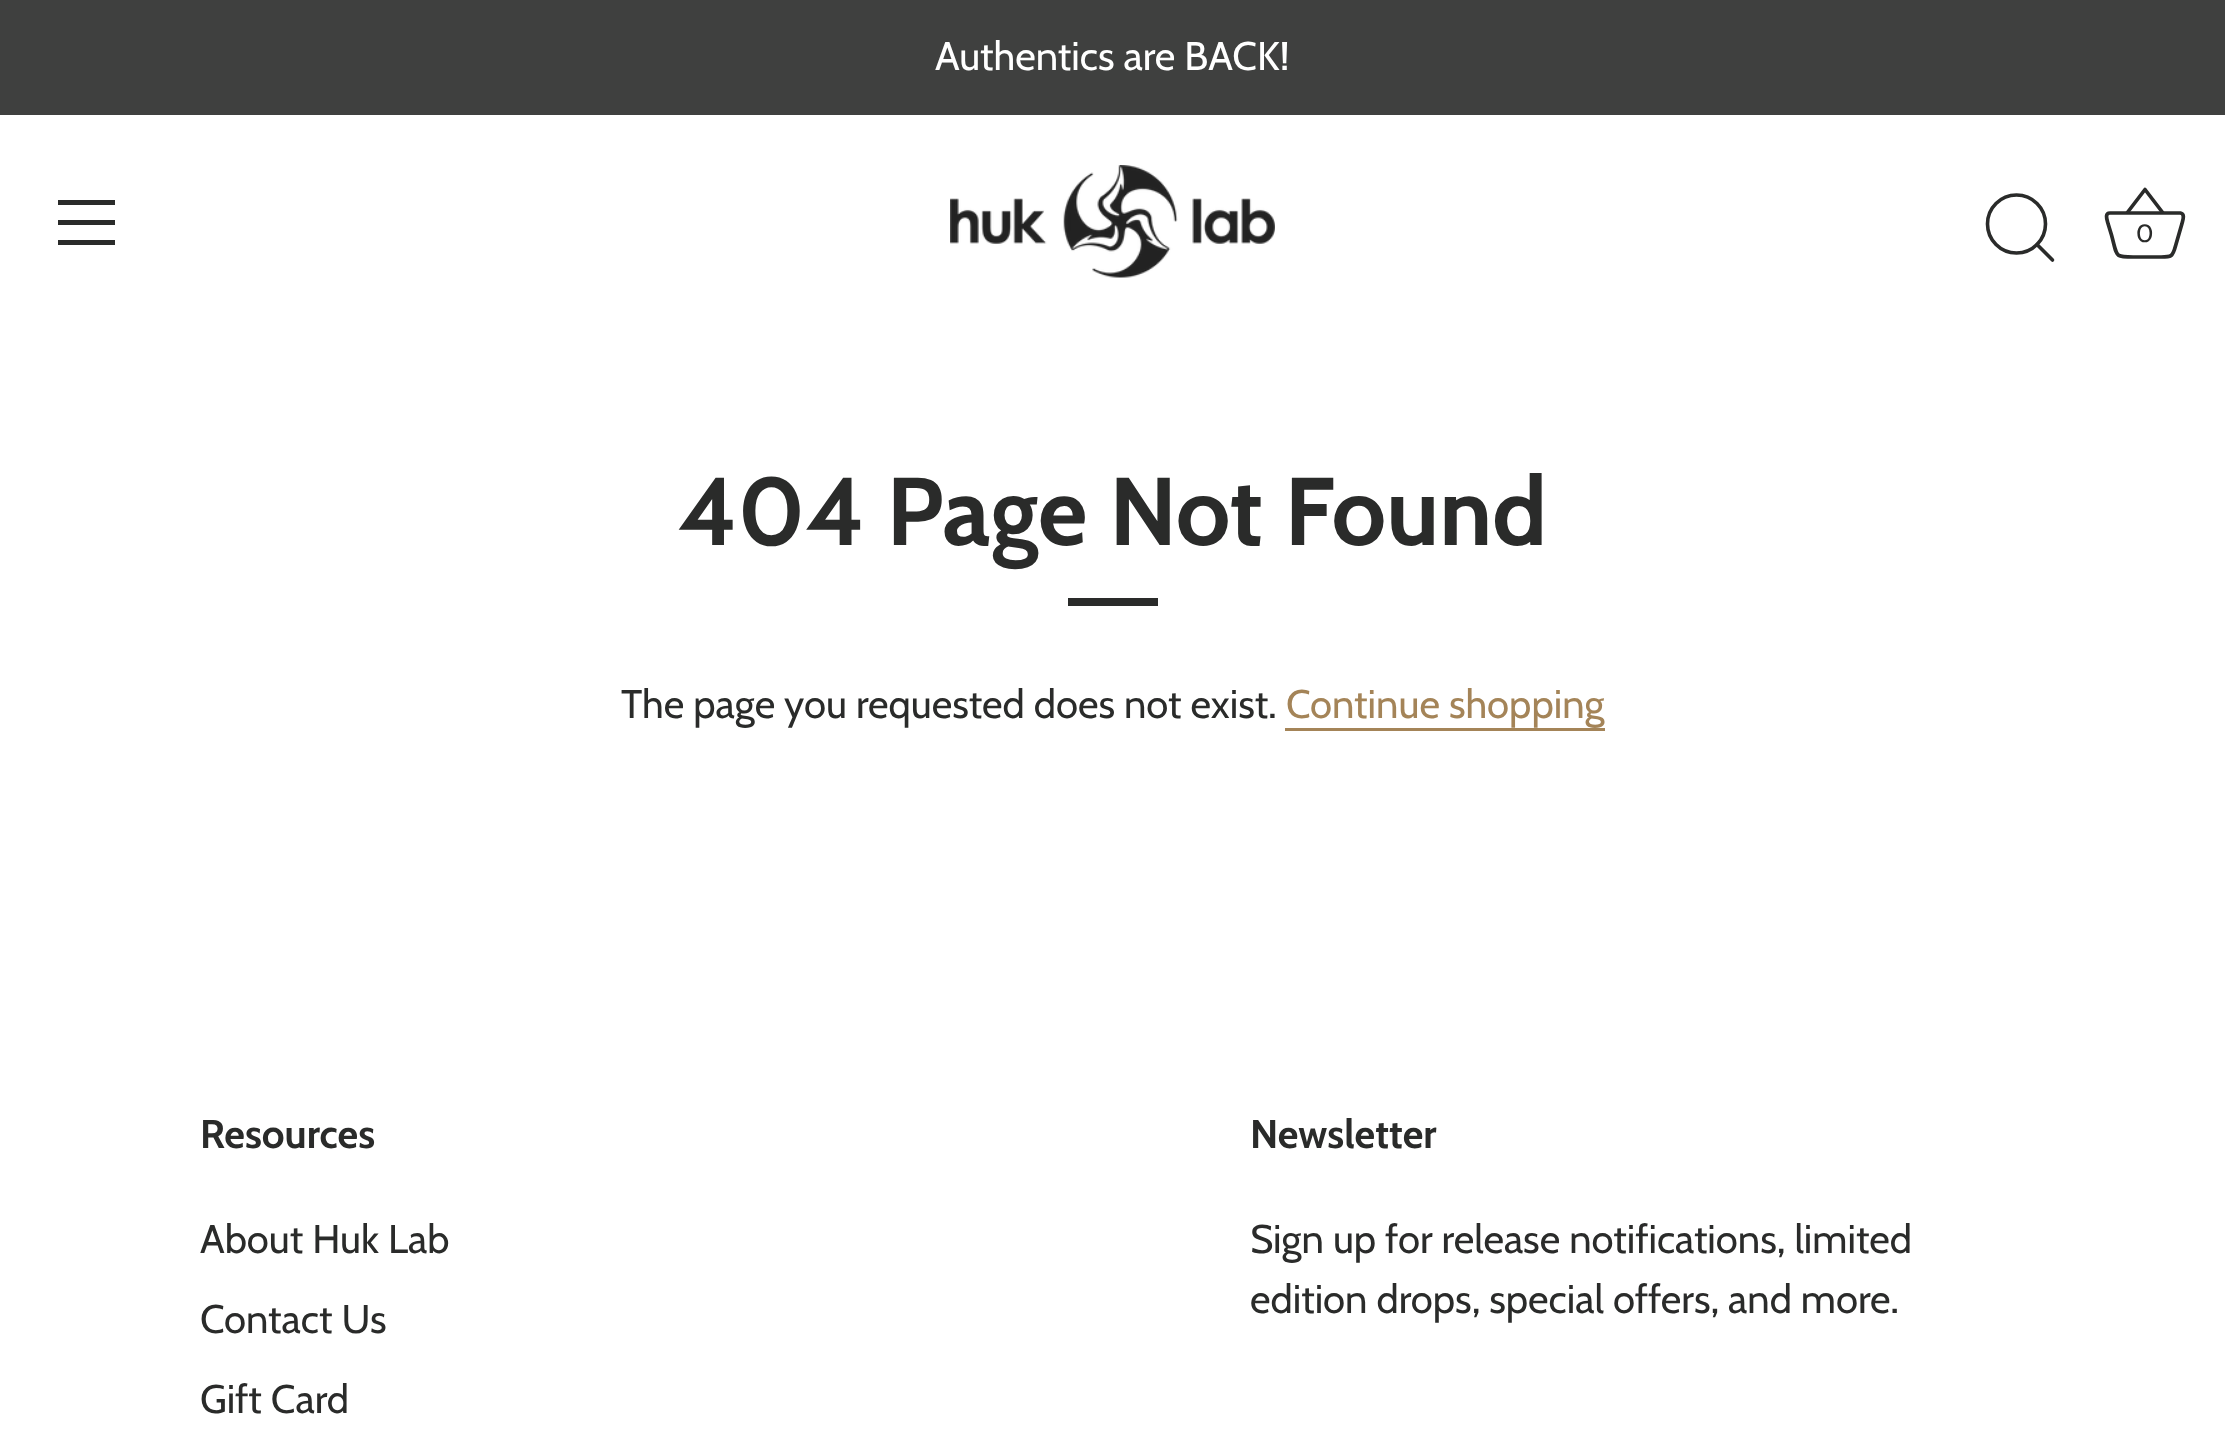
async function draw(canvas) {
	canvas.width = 2225;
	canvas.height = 1441;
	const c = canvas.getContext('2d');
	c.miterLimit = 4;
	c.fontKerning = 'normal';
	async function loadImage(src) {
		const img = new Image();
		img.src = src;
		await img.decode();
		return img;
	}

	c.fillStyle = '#fff';
	c.fillRect(0, 0, 2225, 1441);
	c.fillStyle = '#3f403f';
	c.fillRect(0, 0, 2225, 115);
	c.font = '40px Cabin';
	c.fillStyle = '#fff';
	c.fillText('Authentics are BACK!', 935, 70);
	for (const [x, y, w, h, color] of [
		[58, 200, 57, 5, '#2a2b2a'],
		[58, 220, 57, 5, '#2a2b2a'],
		[58, 240, 57, 5, '#2a2b2a'],
	]) {
		c.fillStyle = color;
		c.fillRect(x, y, w, h);
	}
	c.drawImage(await loadImage('img1.png'), 950, 165, 325, 113);
	c.beginPath();
	c.arc(2016.5, 224, 29, 0, 2 * Math.PI);
	c.strokeStyle = '#2a2b2a';
	c.lineWidth = 3.6;
	c.stroke();
	c.beginPath();
	c.moveTo(2052.5, 260);
	c.lineTo(2037, 244.5);
	c.lineCap = 'round';
	c.lineJoin = 'round';
	c.stroke();
	c.beginPath();
	c.moveTo(2110, 213);
	c.bezierCurveTo(2104, 213, 2107.5, 221, 2108, 223.5);
	c.lineTo(2111.5, 235);
	c.bezierCurveTo(2118, 258.5, 2113.5, 257, 2138, 257);
	c.lineTo(2159.5, 257);
	c.bezierCurveTo(2171, 257, 2172.5, 257.5, 2175.5, 246);
	c.lineTo(2182, 223.5);
	c.bezierCurveTo(2182.5, 221, 2185.5, 214, 2180.5, 213);
	c.lineTo(2110, 213);
	c.lineWidth = 3.7;
	c.lineCap = 'butt';
	c.stroke();
	c.beginPath();
	c.moveTo(2127, 213);
	c.lineTo(2145, 189.5);
	c.lineTo(2163, 213);
	c.stroke();
	c.font = '25px Cabin';
	c.fillText('0', 2136, 242);
	c.font = 'bold 96px Cabin';
	c.fillText('404 Page Not Found', 678, 545);
	c.fillRect(1068, 598, 90, 8);
	c.font = '40px Cabin';
	c.fillText('The page you requested does not exist.', 621, 718);
	c.fillStyle = '#a48458';
	c.fillText('Continue shopping', 1286, 718);
	c.fillRect(1285, 728, 320, 3);
	c.font = 'bold 40px Cabin';
	c.fillStyle = '#2a2b2a';
	c.fillText('Resources', 200, 1148);
	c.font = '40px Cabin';
	for (const [text, x, y] of [
		['About Huk Lab', 200, 1253],
		['Contact Us', 200, 1333],
		['Gift Card', 200, 1413],
	]) {
		c.fillText(text, x, y);
	}
	c.font = 'bold 40px Cabin';
	c.fillText('Newsletter', 1250, 1148);
	c.font = '40px Cabin';
	c.fillText('Sign up for release notifications, limited', 1250, 1253);
	c.fillText('edition drops, special offers, and more.', 1250, 1313);
}

draw(document.querySelector('canvas'));
